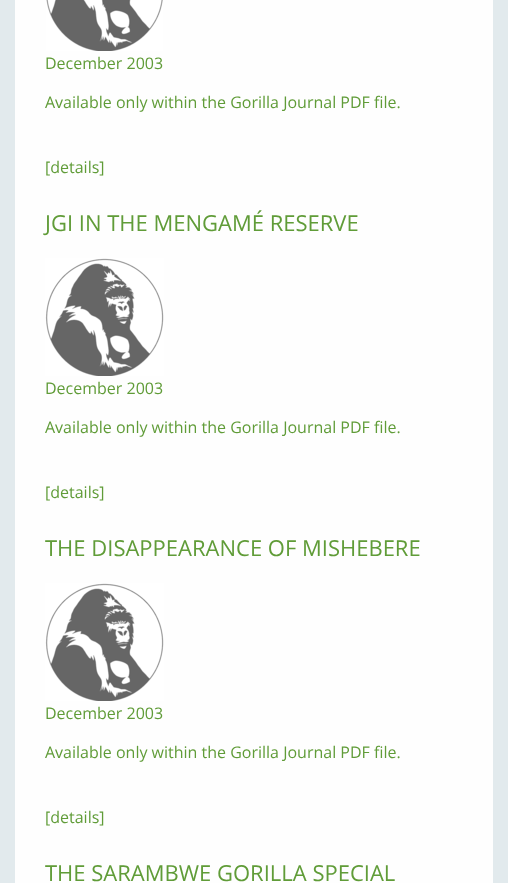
async function draw(canvas) {
	canvas.width = 508;
	canvas.height = 883;
	const c = canvas.getContext('2d');
	c.miterLimit = 4;
	c.fontKerning = 'normal';
	async function loadImage(src) {
		const img = new Image();
		img.src = src;
		await img.decode();
		return img;
	}

	c.fillStyle = '#e2eaed';
	c.fillRect(0, 0, 508, 883);
	c.fillStyle = '#fefefe';
	c.fillRect(15, 0, 478, 883);
	c.drawImage(await loadImage('img1.png'), 46, 0, 117, 51);
	c.font = '16px Open Sans';
	c.fillStyle = '#609c38';
	for (const [text, x, y] of [
		['December 2003', 45, 69],
		['Available only within the Gorilla Journal PDF file.', 45, 108],
		['[details]', 45, 173],
	]) {
		c.fillText(text, x, y);
	}
	c.font = '22px Open Sans';
	c.fillText('JGI IN THE MENGAMÉ RESERVE', 45, 231);
	c.drawImage(await loadImage('img2.png'), 45, 258, 119, 118);
	c.font = '16px Open Sans';
	for (const [text, x, y] of [
		['December 2003', 45, 394],
		['Available only within the Gorilla Journal PDF file.', 45, 433],
		['[details]', 45, 498],
	]) {
		c.fillText(text, x, y);
	}
	c.font = '22px Open Sans';
	c.fillText('THE DISAPPEARANCE OF MISHEBERE', 45, 556);
	c.drawImage(await loadImage('img2.png'), 45, 583, 119, 118);
	c.font = '16px Open Sans';
	for (const [text, x, y] of [
		['December 2003', 45, 719],
		['Available only within the Gorilla Journal PDF file.', 45, 758],
		['[details]', 45, 823],
	]) {
		c.fillText(text, x, y);
	}
	c.font = '22px Open Sans';
	c.fillText('THE SARAMBWE GORILLA SPECIAL', 45, 881);
}

draw(document.querySelector('canvas'));
